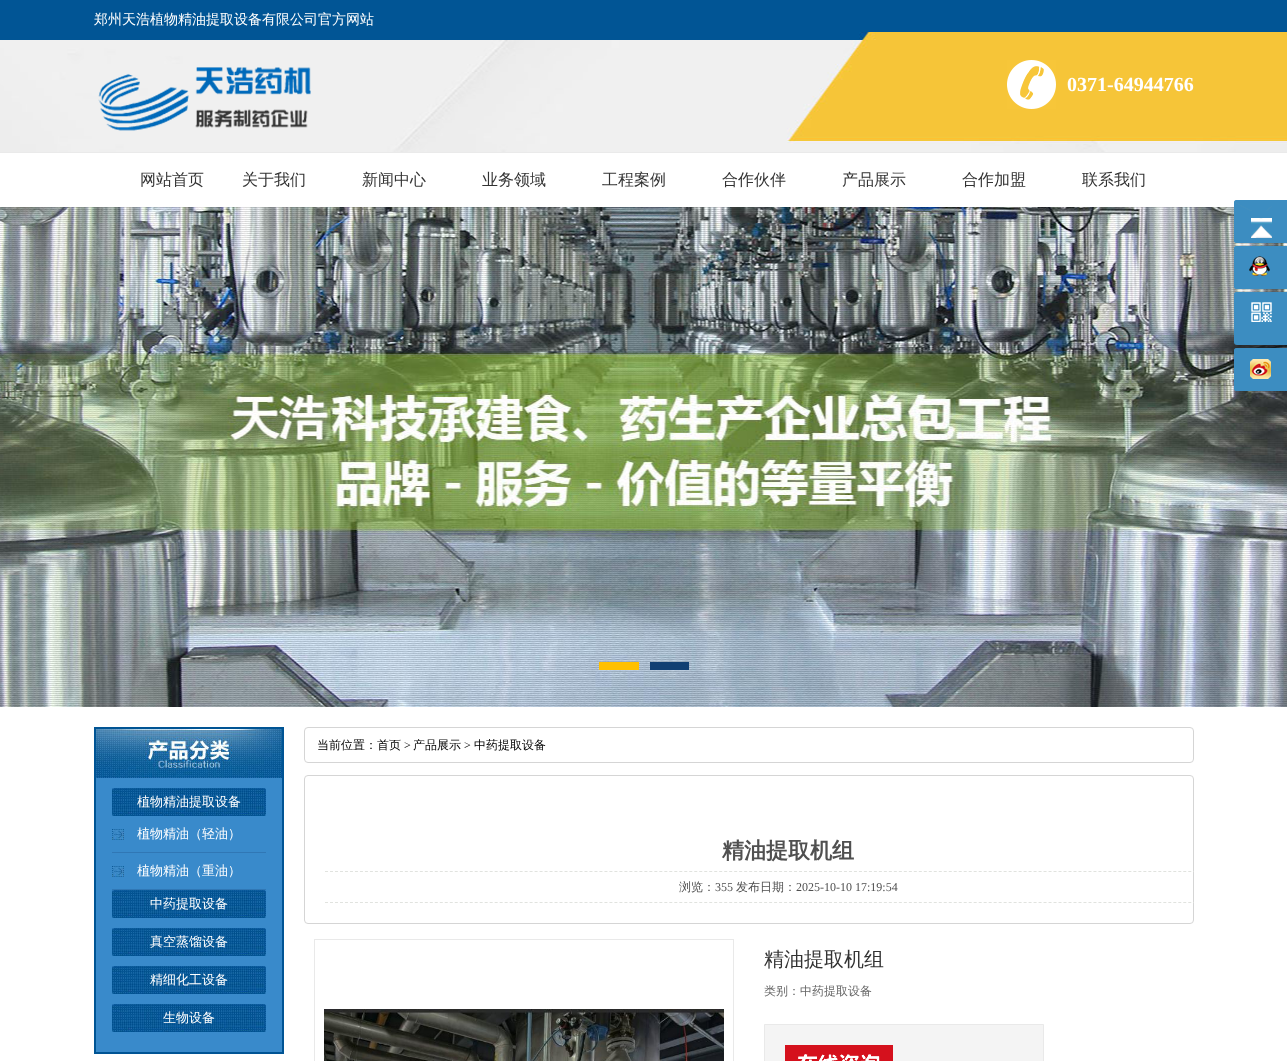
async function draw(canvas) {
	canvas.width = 1287;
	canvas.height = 1061;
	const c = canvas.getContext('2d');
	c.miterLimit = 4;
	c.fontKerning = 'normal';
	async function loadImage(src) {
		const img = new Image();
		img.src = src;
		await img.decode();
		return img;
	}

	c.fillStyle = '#fff';
	c.fillRect(0, 0, 1287, 1061);
	c.drawImage(await loadImage('img1.png'), 0, 0, 1287, 153);
	c.font = '500 14px WenQuanYi Zen Hei';
	c.fillText('郑州天浩植物精油提取设备有限公司官方网站', 94, 24);
	c.drawImage(await loadImage('img2.png'), 98, 67, 213, 64);
	c.drawImage(await loadImage('img3.png'), 1007, 60, 49, 49);
	c.font = 'bold 20px Liberation Serif';
	c.fillText('0371-64944766', 1067, 91);
	c.font = '500 16px WenQuanYi Zen Hei';
	c.fillStyle = '#333';
	for (const [text, x, y] of [
		['网站首页', 140, 185],
		['关于我们', 242, 185],
		['新闻中心', 362, 185],
		['业务领域', 482, 185],
		['工程案例', 602, 185],
		['合作伙伴', 722, 185],
		['产品展示', 842, 185],
		['合作加盟', 962, 185],
		['联系我们', 1082, 185],
	]) {
		c.fillText(text, x, y);
	}
	c.drawImage(await loadImage('img8.png'), 0, 207, 1287, 500);
	c.fillStyle = '#3c8dc1';
	c.beginPath();
	c.roundRect(1234, 200, 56, 43, 3);
	c.fill();
	c.drawImage(await loadImage('img4.png'), 1234, 200, 38, 43);
	c.beginPath();
	c.roundRect(1234, 246, 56, 43, 3);
	c.fill();
	c.drawImage(await loadImage('img5.png'), 1234, 246, 36, 43);
	c.beginPath();
	c.roundRect(1234, 292, 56, 53, 3);
	c.fill();
	c.drawImage(await loadImage('img6.png'), 1234, 292, 38, 30);
	c.beginPath();
	c.roundRect(1234, 348, 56, 43, 3);
	c.fill();
	c.drawImage(await loadImage('img7.png'), 1234, 348, 37, 43);
	c.fillStyle = '#ffc000';
	c.fillRect(599, 662, 40, 8);
	c.fillStyle = '#113f73';
	c.fillRect(650, 662, 39, 8);
	c.strokeStyle = '#005494';
	c.lineWidth = 2;
	c.strokeRect(95, 728, 188, 325);
	c.drawImage(await loadImage('img9.png'), 96, 729, 186, 49);
	c.fillStyle = '#398acb';
	c.fillRect(96, 778, 186, 274);
	c.drawImage(await loadImage('img10.png'), 112, 788, 154, 28);
	c.font = '500 13px WenQuanYi Zen Hei';
	c.fillStyle = '#fff';
	c.fillText('植物精油提取设备', 137, 806);
	c.drawImage(await loadImage('img11.png'), 112, 829, 12, 11);
	c.fillStyle = '#3077b5';
	c.fillRect(112, 852, 154, 1);
	c.fillStyle = '#fff';
	c.fillText('植物精油（轻油）', 137, 838);
	c.drawImage(await loadImage('img11.png'), 112, 866, 12, 11);
	c.fillStyle = '#3077b5';
	c.fillRect(112, 889, 154, 1);
	c.fillStyle = '#fff';
	c.fillText('植物精油（重油）', 137, 875);
	c.drawImage(await loadImage('img10.png'), 112, 890, 154, 28);
	c.fillText('中药提取设备', 150, 908);
	c.drawImage(await loadImage('img10.png'), 112, 928, 154, 28);
	c.fillText('真空蒸馏设备', 150, 946);
	c.drawImage(await loadImage('img10.png'), 112, 966, 154, 28);
	c.fillText('精细化工设备', 150, 984);
	c.drawImage(await loadImage('img10.png'), 112, 1004, 154, 28);
	c.fillText('生物设备', 163, 1022);
	c.beginPath();
	c.roundRect(304.5, 727.5, 889, 35, 3.5);
	c.strokeStyle = '#d5d5d5';
	c.lineWidth = 1;
	c.stroke();
	c.font = '500 12px WenQuanYi Zen Hei';
	c.fillStyle = '#000';
	c.fillText('当前位置：首页', 317, 749);
	c.font = '12px Liberation Serif';
	c.fillText('>', 404, 749);
	c.font = '500 12px WenQuanYi Zen Hei';
	c.fillText('产品展示', 413, 749);
	c.font = '12px Liberation Serif';
	c.fillText('>', 464, 749);
	c.font = '500 12px WenQuanYi Zen Hei';
	c.fillText('中药提取设备', 474, 749);
	c.beginPath();
	c.roundRect(304.5, 775.5, 889, 148, 3.5);
	c.stroke();
	c.save();
	c.beginPath();
	c.rect(304, 727, 890, 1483);
	c.clip();
	c.beginPath();
	c.moveTo(325, 871.5);
	c.lineTo(1252, 871.5);
	c.strokeStyle = '#e1e3df';
	c.setLineDash([3, 1.99]);
	c.stroke();
	c.restore();
	c.font = 'bold 22px WenQuanYi Zen Hei';
	c.fillStyle = '#505050';
	c.fillText('精油提取机组', 722, 858);
	c.save();
	c.beginPath();
	c.rect(304, 727, 890, 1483);
	c.clip();
	c.beginPath();
	c.moveTo(325, 902.5);
	c.lineTo(1252, 902.5);
	c.strokeStyle = '#e1e3df';
	c.setLineDash([3, 1.99]);
	c.stroke();
	c.restore();
	c.font = '500 12px WenQuanYi Zen Hei';
	c.fillText('浏览：', 679, 891);
	c.font = '12px Liberation Serif';
	c.fillText('355', 715, 891);
	c.font = '500 12px WenQuanYi Zen Hei';
	c.fillText('发布日期：', 736, 891);
	c.font = '12px Liberation Serif';
	c.fillText('2025-10-10 17:19:54', 796, 891);
	c.strokeStyle = '#e9e9e9';
	c.strokeRect(314.5, 939.5, 419, 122);
	c.drawImage(await loadImage('img12.png'), 324, 1009, 400, 52);
	c.font = '500 20px WenQuanYi Zen Hei';
	c.fillStyle = '#333';
	c.fillText('精油提取机组', 764, 966);
	c.font = '500 12px WenQuanYi Zen Hei';
	c.fillStyle = '#666';
	c.fillText('类别：中药提取设备', 764, 995);
	c.fillStyle = '#f4f4f4';
	c.beginPath();
	c.rect(764.5, 1024.5, 279, 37);
	c.fill();
	c.stroke();
	c.drawImage(await loadImage('img13.png'), 785, 1045, 108, 16);
}

draw(document.querySelector('canvas'));
